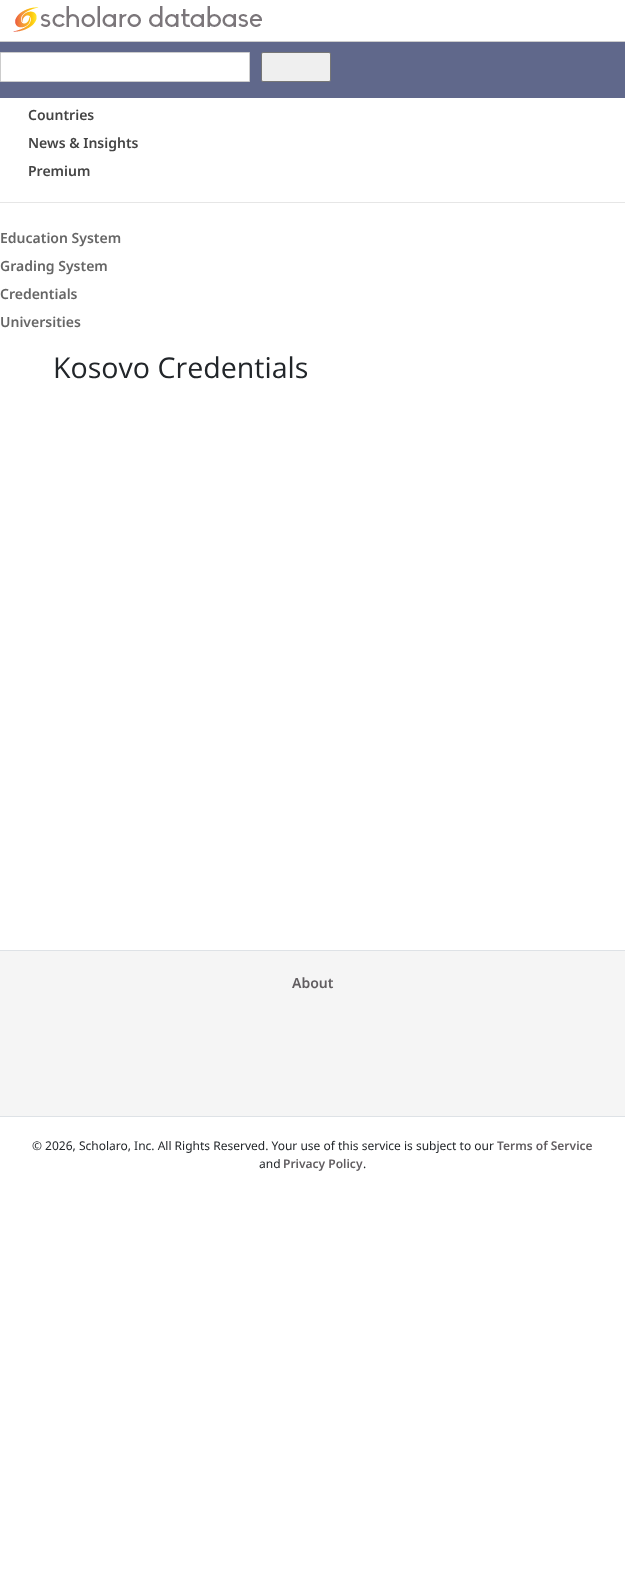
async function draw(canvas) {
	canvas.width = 625;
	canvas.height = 1588;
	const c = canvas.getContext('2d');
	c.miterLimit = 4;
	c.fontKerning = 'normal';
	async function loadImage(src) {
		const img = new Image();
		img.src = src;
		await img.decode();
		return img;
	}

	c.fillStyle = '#fff';
	c.fillRect(0, 0, 625, 1588);
	c.fillStyle = '#ccc';
	c.fillRect(0, 41, 625, 1);
	c.drawImage(await loadImage('img1.png'), 13, 6, 249, 26);
	c.fillStyle = '#60688b';
	c.fillRect(0, 42, 625, 56);
	c.fillStyle = '#fff';
	c.beginPath();
	c.rect(0.5, 52.5, 249, 29);
	c.fill();
	c.strokeStyle = '#ccc';
	c.stroke();
	c.fillStyle = '#efefef';
	c.beginPath();
	c.roundRect(261.5, 52.5, 69, 29, 1.5);
	c.fill();
	c.strokeStyle = '#767676';
	c.stroke();
	c.fillStyle = '#e6e6e6';
	c.fillRect(0, 202, 625, 1);
	c.font = '600 14px Noto Sans';
	c.fillStyle = '#444';
	for (const [text, x, y] of [
		['Countries', 28, 120],
		['News & Insights', 28, 148],
		['Premium', 28, 176],
	]) {
		c.fillText(text, x, y);
	}
	c.fillStyle = '#666';
	for (const [text, x, y] of [
		['Education System', 0, 243],
		['Grading System', 0, 271],
		['Credentials', 0, 299],
		['Universities', 0, 327],
	]) {
		c.fillText(text, x, y);
	}
	c.font = '28.6px Open Sans';
	c.fillStyle = '#212529';
	c.fillText('Kosovo Credentials', 53, 378);
	for (const [x, y, w, h, color] of [
		[0, 951, 625, 165, '#f5f5f5'],
		[0, 950, 625, 1, '#dee2e6'],
		[0, 1116, 625, 1, '#dee2e6'],
	]) {
		c.fillStyle = color;
		c.fillRect(x, y, w, h);
	}
	c.font = '600 14px Noto Sans';
	c.fillStyle = '#615d60';
	c.fillText('About', 292, 988);
	c.font = '12px Noto Sans';
	c.fillStyle = '#212529';
	c.fillText('© 2026, Scholaro, Inc. All Rights Reserved. Your use of this service is subject to our', 32, 1150);
	c.font = '600 12px Noto Sans';
	c.fillStyle = '#615d60';
	c.fillText('Terms of Service', 497, 1150);
	c.font = '12px Noto Sans';
	c.fillStyle = '#212529';
	c.fillText('and', 259, 1168);
	c.font = '600 12px Noto Sans';
	c.fillStyle = '#615d60';
	c.fillText('Privacy Policy', 283, 1168);
	c.font = '12px Noto Sans';
	c.fillStyle = '#212529';
	c.fillText('.', 363, 1168);
}

draw(document.querySelector('canvas'));
